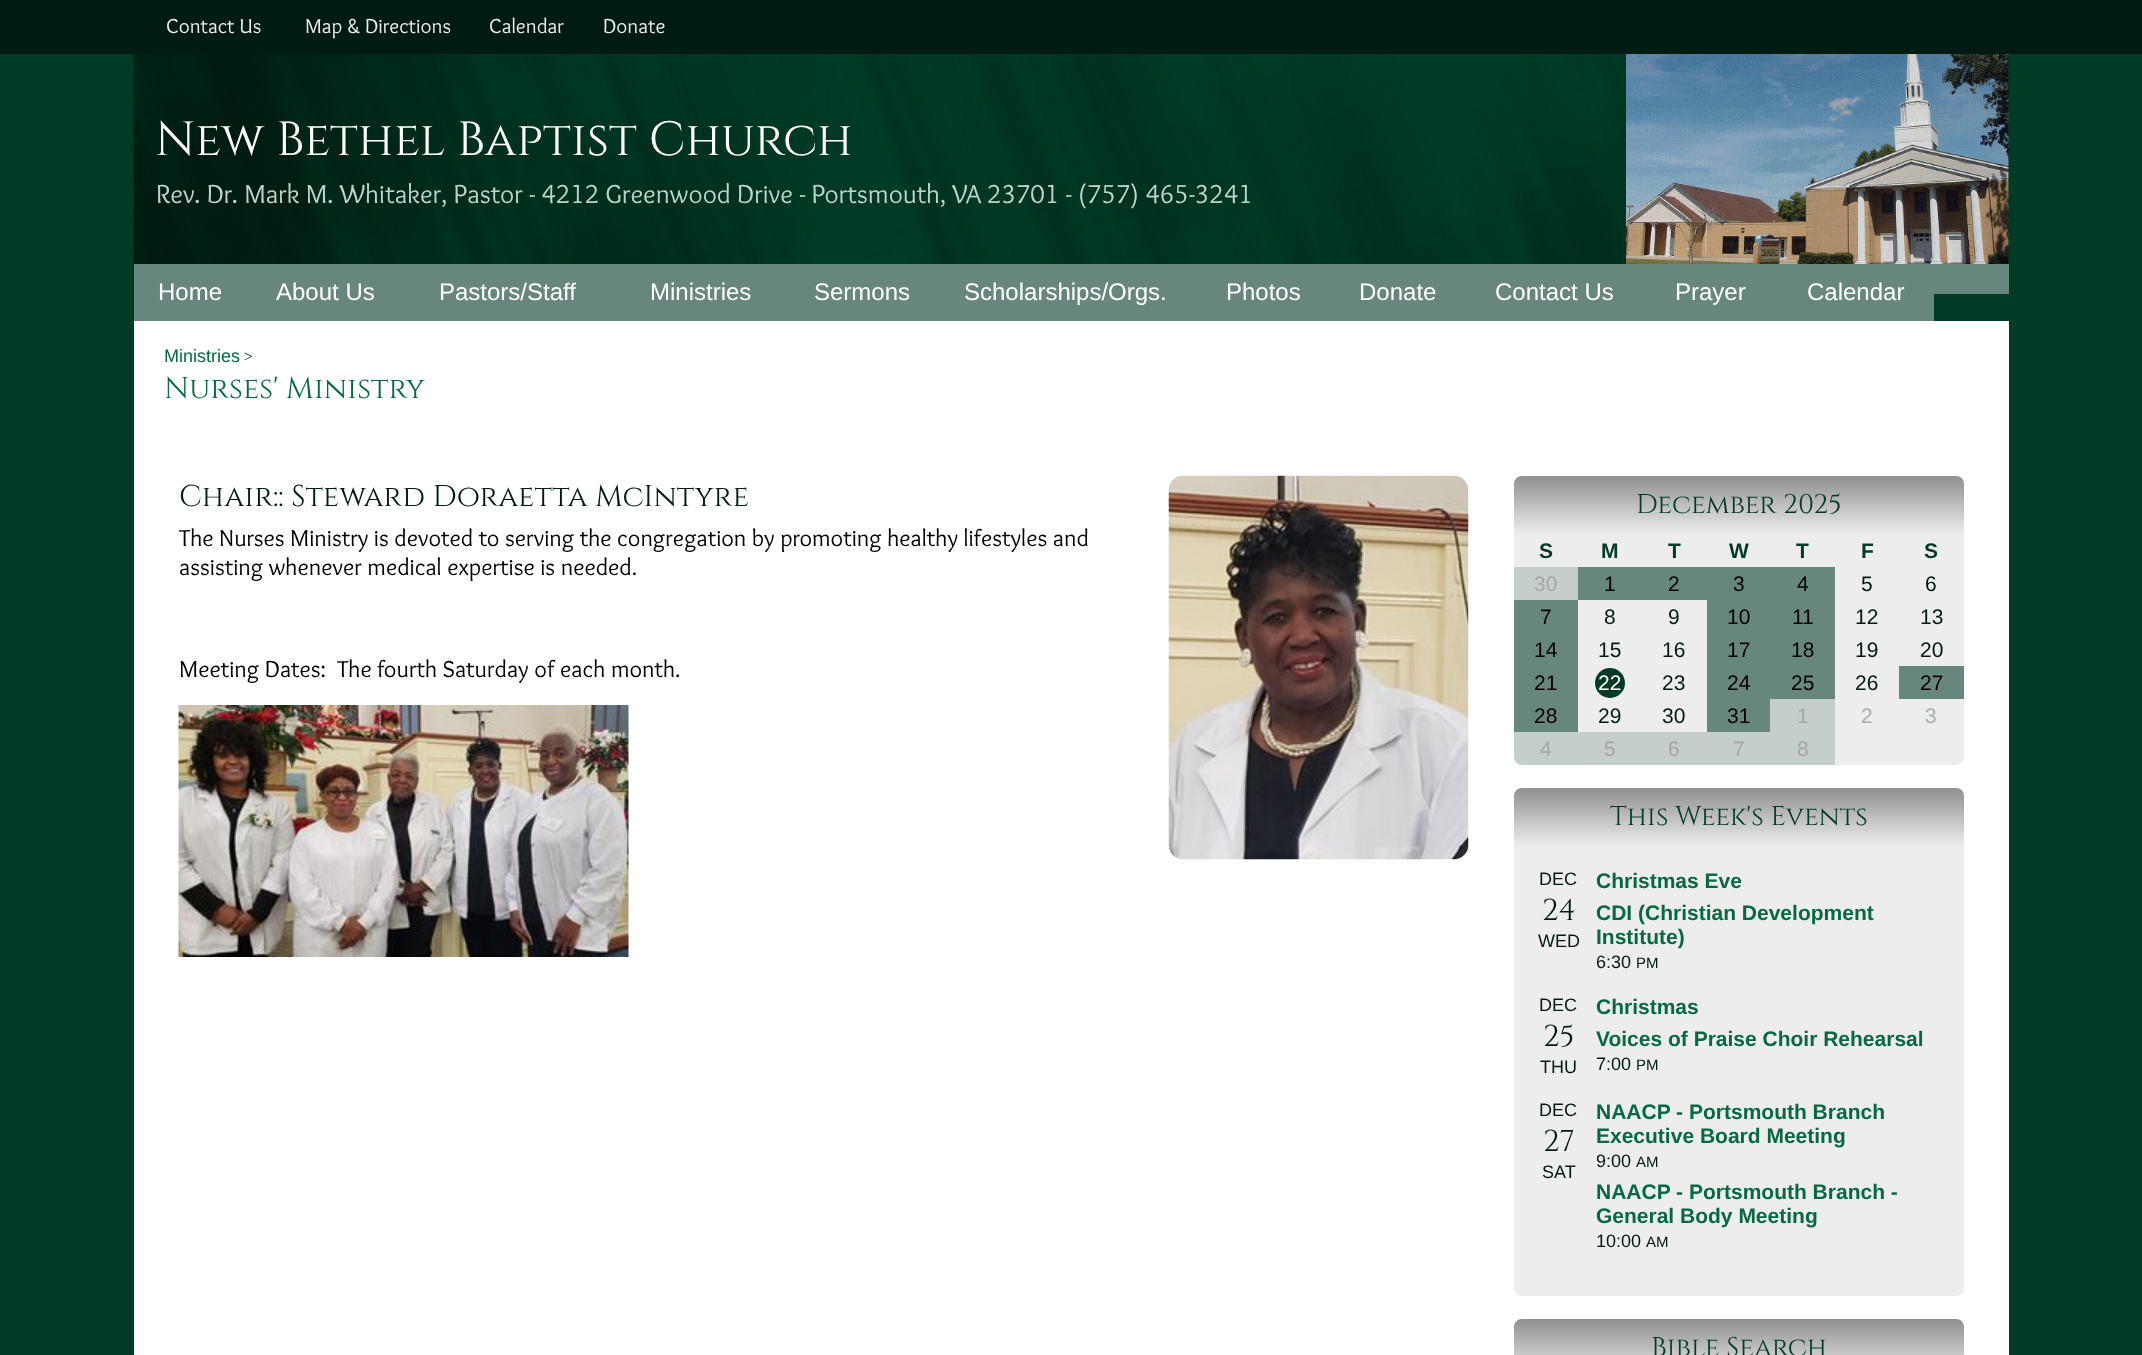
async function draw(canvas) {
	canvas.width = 2142;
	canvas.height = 1355;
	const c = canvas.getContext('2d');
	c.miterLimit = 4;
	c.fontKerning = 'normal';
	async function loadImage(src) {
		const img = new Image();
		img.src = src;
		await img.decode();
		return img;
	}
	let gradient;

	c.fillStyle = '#003b25';
	c.fillRect(0, 0, 2142, 1355);
	c.fillStyle = '#001b11';
	c.fillRect(0, 0, 2142, 54);
	c.font = '21px Overlock';
	c.fillStyle = '#ededed';
	for (const [text, x, y] of [
		['Contact Us', 166, 33],
		['Map & Directions', 305, 33],
		['Calendar', 489, 33],
		['Donate', 603, 33],
	]) {
		c.fillText(text, x, y);
	}
	c.drawImage(await loadImage('img1.png'), 133, 54, 1876, 210);
	c.font = '48px Cinzel';
	c.fillStyle = '#fff';
	c.fillText('New Bethel Baptist Church', 155, 155);
	c.drawImage(await loadImage('img2.png'), 1626, 54, 383, 210);
	c.font = '27px Overlock';
	c.fillStyle = '#bcd4cd';
	c.fillText('Rev. Dr. Mark M. Whitaker, Pastor - 4212 Greenwood Drive - Portsmouth, VA 23701 - (757) 465-3241', 156, 203);
	c.fillStyle = '#67877e';
	c.fillRect(134, 264, 1800, 57);
	c.font = '24px Liberation Sans';
	c.fillStyle = '#fff';
	for (const [text, x, y] of [
		['Home', 158, 300],
		['About Us', 276, 300],
		['Pastors/Staff', 439, 300],
		['Ministries', 650, 300],
		['Sermons', 814, 300],
		['Scholarships/Orgs.', 964, 300],
		['Photos', 1226, 300],
		['Donate', 1359, 300],
		['Contact Us', 1495, 300],
		['Prayer', 1675, 300],
		['Calendar', 1807, 300],
	]) {
		c.fillText(text, x, y);
	}
	c.fillStyle = '#67877e';
	c.fillRect(1934, 264, 75, 30);
	c.fillStyle = '#fff';
	c.fillRect(134, 321, 1875, 1034);
	c.font = '18px Liberation Sans';
	c.fillStyle = '#076942';
	c.fillText('Ministries', 164, 362);
	c.font = '18px Cinzel';
	c.fillStyle = '#003b25';
	c.fillText('>', 244, 362);
	c.font = '30px Cinzel';
	c.fillStyle = '#076942';
	c.fillText('Nurses\' Ministry', 164, 398);
	c.fillStyle = '#001b11';
	c.fillText('Chair:: Steward Doraetta McIntyre', 179, 506);
	c.drawImage(await loadImage('img3.png'), 1168, 475, 301, 385);
	c.font = '24px Overlock';
	c.fillStyle = '#000';
	for (const [text, x, y] of [
		['The Nurses Ministry is devoted to serving the congregation by promoting healthy lifestyles and', 179, 546],
		['assisting whenever medical expertise is needed.', 179, 575],
		['Meeting Dates:  The fourth Saturday of each month.', 179, 677],
	]) {
		c.fillText(text, x, y);
	}
	c.drawImage(await loadImage('img4.png'), 178, 705, 451, 252);
	gradient = c.createLinearGradient(1739, 476, 1739, 534);
	gradient.addColorStop(0, '#8f8f8f');
	gradient.addColorStop(1, '#ededed');
	c.fillStyle = gradient;
	c.beginPath();
	c.roundRect(1514, 476, 450, 58, [8, 8, 0, 0]);
	c.fill();
	c.font = '27px Cinzel';
	c.fillStyle = '#003b25';
	c.fillText('December 2025', 1636, 513);
	c.fillStyle = '#ededed';
	c.beginPath();
	c.roundRect(1514, 534, 450, 231, [0, 0, 8, 8]);
	c.fill();
	c.font = 'bold 21px Liberation Sans';
	c.fillStyle = '#003b25';
	for (const [text, x, y] of [
		['S', 1539, 558],
		['M', 1601, 558],
		['T', 1668, 558],
		['W', 1729, 558],
		['T', 1796, 558],
		['F', 1861, 558],
		['S', 1924, 558],
	]) {
		c.fillText(text, x, y);
	}
	c.fillStyle = '#c5cecc';
	c.fillRect(1514, 567, 64, 33);
	c.font = '21px Liberation Sans';
	c.fillStyle = '#a6a6a6';
	c.fillText('30', 1534, 591);
	c.fillStyle = '#67877e';
	c.fillRect(1578, 567, 257, 33);
	c.fillStyle = '#000';
	for (const [text, x, y] of [
		['1', 1604, 591],
		['2', 1668, 591],
		['3', 1733, 591],
		['4', 1797, 591],
	]) {
		c.fillText(text, x, y);
	}
	c.fillStyle = '#001b11';
	c.fillText('5', 1861, 591);
	c.fillText('6', 1925, 591);
	c.fillStyle = '#67877e';
	c.fillRect(1514, 600, 64, 132);
	c.fillStyle = '#000';
	c.fillText('7', 1540, 624);
	c.fillStyle = '#001b11';
	c.fillText('8', 1604, 624);
	c.fillText('9', 1668, 624);
	c.fillStyle = '#67877e';
	c.fillRect(1707, 600, 128, 33);
	c.fillStyle = '#000';
	c.fillText('10', 1727, 624);
	c.fillText('11', 1792, 624);
	c.fillStyle = '#001b11';
	c.fillText('12', 1855, 624);
	c.fillText('13', 1920, 624);
	c.fillStyle = '#000';
	c.fillText('14', 1534, 657);
	c.fillStyle = '#001b11';
	c.fillText('15', 1598, 657);
	c.fillText('16', 1662, 657);
	c.fillStyle = '#67877e';
	c.fillRect(1707, 633, 128, 33);
	c.fillStyle = '#000';
	c.fillText('17', 1727, 657);
	c.fillText('18', 1791, 657);
	c.fillStyle = '#001b11';
	c.fillText('19', 1855, 657);
	c.fillText('20', 1920, 657);
	c.fillStyle = '#000';
	c.fillText('21', 1534, 690);
	c.fillStyle = '#003b25';
	c.beginPath();
	c.arc(1610, 683, 15, 0, 2 * Math.PI);
	c.fill();
	c.fillStyle = '#fff';
	c.fillText('22', 1598, 690);
	c.fillStyle = '#001b11';
	c.fillText('23', 1662, 690);
	c.fillStyle = '#67877e';
	c.fillRect(1707, 666, 128, 33);
	c.fillStyle = '#000';
	c.fillText('24', 1727, 690);
	c.fillText('25', 1791, 690);
	c.fillStyle = '#001b11';
	c.fillText('26', 1855, 690);
	c.fillStyle = '#67877e';
	c.fillRect(1899, 666, 65, 33);
	c.fillStyle = '#000';
	c.fillText('27', 1920, 690);
	c.fillText('28', 1534, 723);
	c.fillStyle = '#001b11';
	c.fillText('29', 1598, 723);
	c.fillText('30', 1662, 723);
	c.fillStyle = '#67877e';
	c.fillRect(1707, 699, 63, 33);
	c.fillStyle = '#000';
	c.fillText('31', 1727, 723);
	c.fillStyle = '#c5cecc';
	c.fillRect(1770, 699, 65, 33);
	c.fillStyle = '#a6a6a6';
	c.fillText('1', 1797, 723);
	c.fillStyle = '#a6aeab';
	c.fillText('2', 1861, 723);
	c.fillText('3', 1925, 723);
	c.fillStyle = '#67877e4d';
	c.beginPath();
	c.roundRect(1514, 732, 64, 33, [0, 0, 0, 8]);
	c.fill();
	c.fillStyle = '#a6a6a6';
	c.fillText('4', 1540, 756);
	c.fillStyle = '#c5cecc';
	c.fillRect(1578, 732, 257, 33);
	c.fillStyle = '#a6a6a6';
	for (const [text, x, y] of [
		['5', 1604, 756],
		['6', 1668, 756],
		['7', 1733, 756],
		['8', 1797, 756],
	]) {
		c.fillText(text, x, y);
	}
	gradient = c.createLinearGradient(1739, 788, 1739, 846);
	gradient.addColorStop(0, '#8f8f8f');
	gradient.addColorStop(1, '#ededed');
	c.fillStyle = gradient;
	c.beginPath();
	c.roundRect(1514, 788, 450, 58, [8, 8, 0, 0]);
	c.fill();
	c.font = '27px Cinzel';
	c.fillStyle = '#003b25';
	c.fillText('This Week\'s Events', 1610, 825);
	c.fillStyle = '#ededed';
	c.beginPath();
	c.roundRect(1514, 846, 450, 450, [0, 0, 8, 8]);
	c.fill();
	c.font = '18px Liberation Sans';
	c.fillStyle = '#001b11';
	c.fillText('DEC', 1539, 885);
	c.font = '30px Cinzel';
	c.fillText('24', 1542, 920);
	c.font = '18px Liberation Sans';
	c.fillText('WED', 1538, 947);
	c.font = 'bold 21px Liberation Sans';
	c.fillStyle = '#076942';
	for (const [text, x, y] of [
		['Christmas Eve', 1596, 888],
		['CDI (Christian Development', 1596, 920],
		['Institute)', 1596, 944],
	]) {
		c.fillText(text, x, y);
	}
	c.font = '18px Liberation Sans';
	c.fillStyle = '#001b11';
	c.fillText('6:30', 1596, 968);
	c.font = '15px Liberation Sans';
	c.fillText('PM', 1636, 968);
	c.font = '18px Liberation Sans';
	c.fillText('DEC', 1539, 1011);
	c.font = '30px Cinzel';
	c.fillText('25', 1543, 1046);
	c.font = '18px Liberation Sans';
	c.fillText('THU', 1540, 1073);
	c.font = 'bold 21px Liberation Sans';
	c.fillStyle = '#076942';
	c.fillText('Christmas', 1596, 1014);
	c.fillText('Voices of Praise Choir Rehearsal', 1596, 1046);
	c.font = '18px Liberation Sans';
	c.fillStyle = '#001b11';
	c.fillText('7:00', 1596, 1070);
	c.font = '15px Liberation Sans';
	c.fillText('PM', 1636, 1070);
	c.font = '18px Liberation Sans';
	c.fillText('DEC', 1539, 1116);
	c.font = '30px Cinzel';
	c.fillText('27', 1543, 1151);
	c.font = '18px Liberation Sans';
	c.fillText('SAT', 1542, 1178);
	c.font = 'bold 21px Liberation Sans';
	c.fillStyle = '#076942';
	c.fillText('NAACP - Portsmouth Branch', 1596, 1119);
	c.fillText('Executive Board Meeting', 1596, 1143);
	c.font = '18px Liberation Sans';
	c.fillStyle = '#001b11';
	c.fillText('9:00', 1596, 1167);
	c.font = '15px Liberation Sans';
	c.fillText('AM', 1636, 1167);
	c.font = 'bold 21px Liberation Sans';
	c.fillStyle = '#076942';
	c.fillText('NAACP - Portsmouth Branch -', 1596, 1199);
	c.fillText('General Body Meeting', 1596, 1223);
	c.font = '18px Liberation Sans';
	c.fillStyle = '#001b11';
	c.fillText('10:00', 1596, 1247);
	c.font = '15px Liberation Sans';
	c.fillText('AM', 1646, 1247);
	gradient = c.createLinearGradient(1739, 1319, 1739, 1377);
	gradient.addColorStop(0, '#8f8f8f');
	gradient.addColorStop(1, '#ededed');
	c.fillStyle = gradient;
	c.beginPath();
	c.moveTo(1522, 1319);
	c.lineTo(1956, 1319);
	c.bezierCurveTo(1960.5, 1319, 1964, 1322.5, 1964, 1327);
	c.lineTo(1964, 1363);
	c.lineTo(1514, 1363);
	c.lineTo(1514, 1327);
	c.bezierCurveTo(1514, 1322.5, 1517.5, 1319, 1522, 1319);
	c.closePath();
	c.fill();
	c.font = '27px Cinzel';
	c.fillStyle = '#003b25';
	c.fillText('Bible Search', 1651, 1356);
}

draw(document.querySelector('canvas'));
